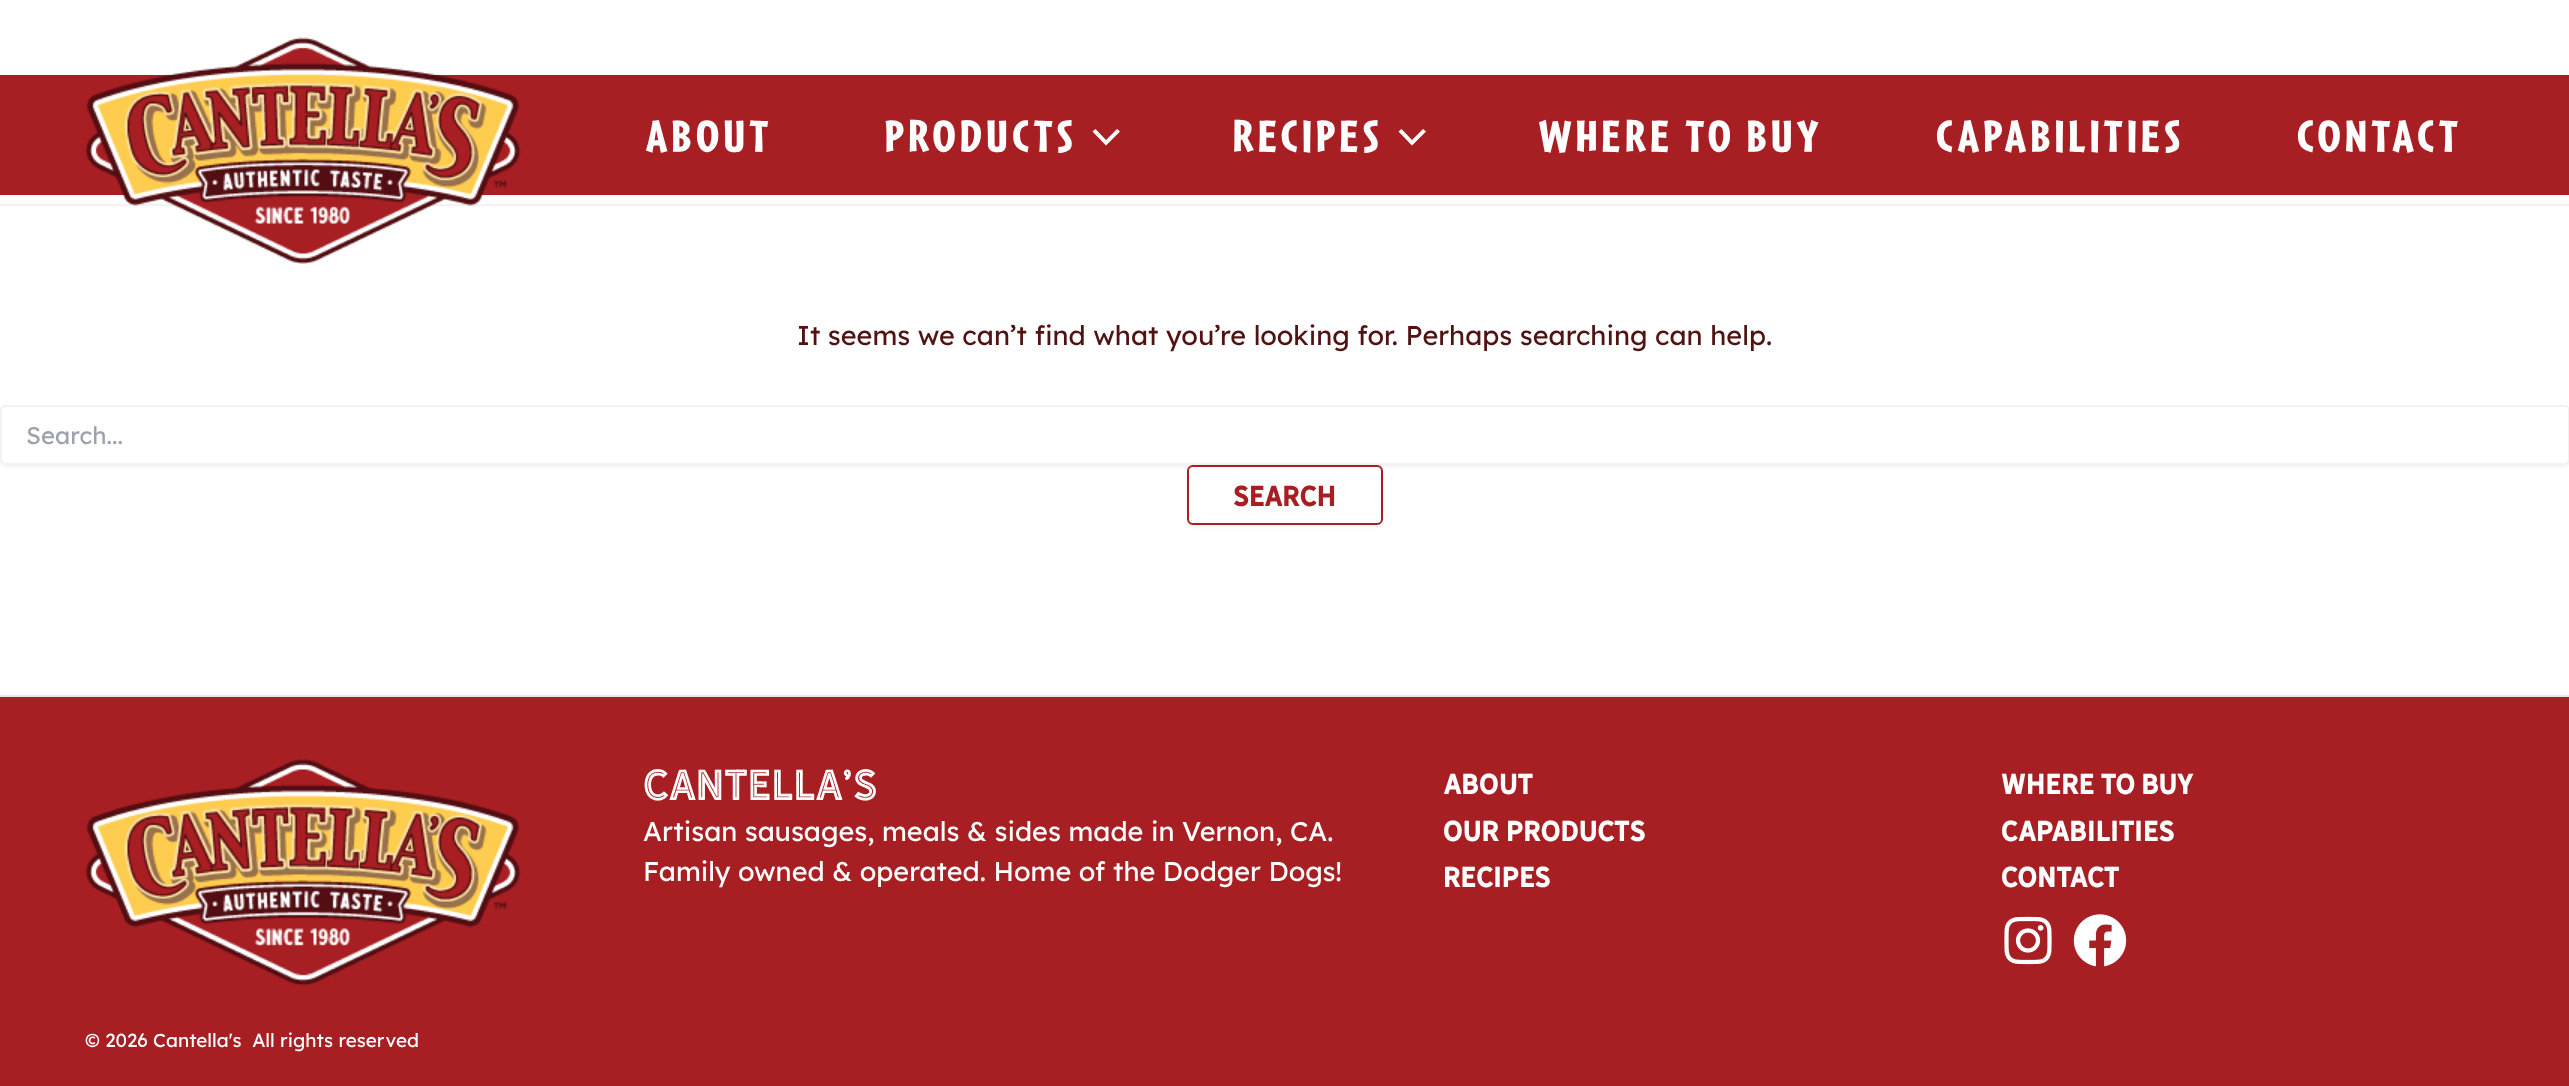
async function draw(canvas) {
	canvas.width = 2569;
	canvas.height = 1086;
	const c = canvas.getContext('2d');
	c.miterLimit = 4;
	c.fontKerning = 'normal';
	async function loadImage(src) {
		const img = new Image();
		img.src = src;
		await img.decode();
		return img;
	}

	c.fillStyle = '#fff';
	c.fillRect(0, 0, 2569, 1086);
	c.fillStyle = '#a71f23';
	c.fillRect(0, 75, 2569, 120);
	c.fillStyle = '#f2f2f3';
	c.fillRect(0, 204, 2569, 2);
	c.drawImage(await loadImage('img1.png'), 85, 37, 436, 227);
	c.letterSpacing = '4.5px';
	c.font = '900 47.25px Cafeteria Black';
	c.fillStyle = '#fff';
	c.fillText('ABOUT', 646, 152);
	c.fillText('PRODUCTS', 885, 152);
	c.beginPath();
	c.moveTo(1092.5, 131.5);
	c.lineTo(1106, 145.5);
	c.lineTo(1120, 131.5);
	c.lineTo(1117, 129);
	c.lineTo(1106, 140);
	c.lineTo(1095.5, 129);
	c.closePath();
	c.fill();
	c.fillText('RECIPES', 1233, 152);
	c.beginPath();
	c.moveTo(1398.5, 131.5);
	c.lineTo(1412, 145.5);
	c.lineTo(1426, 131.5);
	c.lineTo(1423, 129);
	c.lineTo(1412, 140);
	c.lineTo(1401.5, 129);
	c.closePath();
	c.fill();
	for (const [text, x, y] of [
		['WHERE TO BUY', 1539, 152],
		['CAPABILITIES', 1936, 152],
		['CONTACT', 2297, 152],
	]) {
		c.fillText(text, x, y);
	}
	c.letterSpacing = '0px';
	c.font = '27px Lexend';
	c.fillStyle = '#521212';
	c.fillText('It seems we can’t find what you’re looking for. Perhaps searching can help.', 797, 345);
	c.fillStyle = '#0000000d';
	c.filter = 'blur(1.5px)';
	c.beginPath();
	c.roundRect(0, 407, 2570, 60, 6);
	c.fill();
	c.filter = 'none';
	c.fillStyle = '#fff';
	c.beginPath();
	c.roundRect(1, 406, 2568, 58, 5);
	c.fill();
	c.strokeStyle = '#f2f2f3';
	c.lineWidth = 2;
	c.stroke();
	c.font = '24px Lexend';
	c.fillStyle = '#9ca3af';
	c.fillText('Search...', 26, 444);
	c.fillStyle = '#0000000d';
	c.filter = 'blur(1.5px)';
	c.beginPath();
	c.roundRect(1187, 467, 196, 60, 6);
	c.fill();
	c.filter = 'none';
	c.fillStyle = '#fff';
	c.beginPath();
	c.roundRect(1188, 466, 194, 58, 5);
	c.fill();
	c.strokeStyle = '#a71f23';
	c.stroke();
	c.font = '27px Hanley';
	c.fillStyle = '#a71f23';
	c.fillText('SEARCH', 1233, 506);
	c.fillRect(0, 697, 2569, 298);
	c.fillStyle = '#e6e6e6';
	c.fillRect(0, 695, 2569, 2);
	c.drawImage(await loadImage('img2.png'), 85, 759, 436, 227);
	c.font = '40.5px "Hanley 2"';
	c.fillStyle = '#fff';
	c.fillText('Cantella’s', 643, 800);
	c.font = '27px Lexend';
	c.fillText('Artisan sausages, meals & sides made in Vernon, CA.', 643, 841);
	c.fillText('Family owned & operated. Home of the Dodger Dogs!', 643, 881);
	c.font = '27px Hanley';
	for (const [text, x, y] of [
		['About', 1443, 794],
		['Our Products', 1443, 841],
		['Recipes', 1443, 887],
		['Where To Buy', 2001, 794],
		['CAPABILITIES', 2001, 841],
		['Contact', 2001, 887],
	]) {
		c.fillText(text, x, y);
	}
	c.drawImage(await loadImage('img3.png'), 2004, 916, 48, 49);
	c.drawImage(await loadImage('img4.png'), 2073, 914, 54, 53);
	c.fillStyle = '#a71f23';
	c.fillRect(0, 995, 2569, 91);
	c.font = '18.9px Lexend';
	c.fillStyle = '#fff';
	c.fillText('© 2026 Cantella\'s  All rights reserved', 85, 1047);
}

draw(document.querySelector('canvas'));
